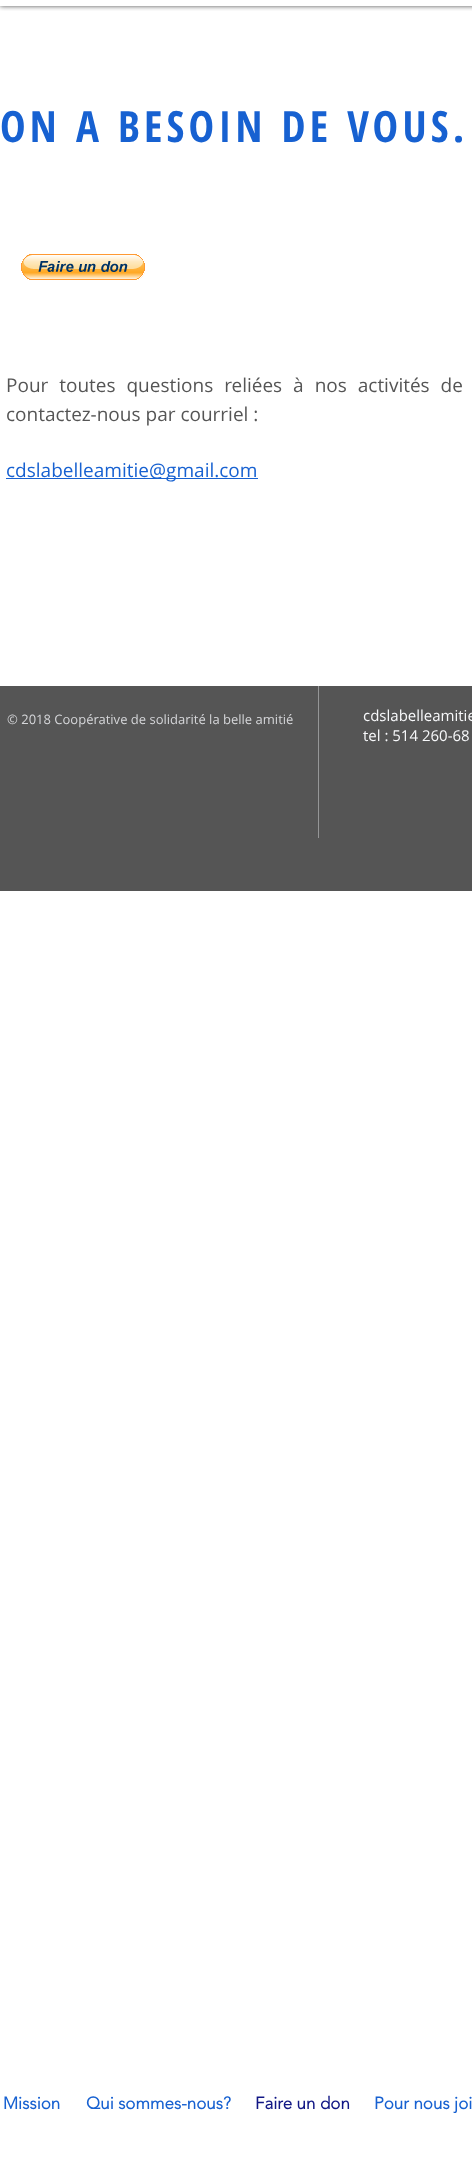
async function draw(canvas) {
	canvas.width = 472;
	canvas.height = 2158;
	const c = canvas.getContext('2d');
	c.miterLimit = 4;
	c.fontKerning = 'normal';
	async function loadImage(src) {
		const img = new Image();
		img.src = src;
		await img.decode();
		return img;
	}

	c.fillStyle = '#fff';
	c.fillRect(0, 0, 472, 2158);
	c.save();
	c.beginPath();
	c.rect(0, 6, 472, 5);
	c.clip();
	c.fillStyle = '#000000b3';
	c.filter = 'blur(2.5px)';
	c.beginPath();
	c.rect(0, 0, 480, 6);
	c.fill();
	c.filter = 'none';
	c.restore();
	c.letterSpacing = '4.25px';
	c.font = 'bold 43px Open Sans Condensed';
	c.fillStyle = '#1761d1';
	c.fillText('ON A BESOIN DE VOUS.', 0, 142);
	c.drawImage(await loadImage('img1.png'), 21, 254, 124, 26);
	c.letterSpacing = '0px';
	c.wordSpacing = '6px';
	c.font = '19px Open Sans';
	c.fillStyle = '#555';
	c.fillText('Pour toutes questions reliées à nos activités de', 6, 392);
	c.wordSpacing = '0px';
	c.fillText('contactez-nous par courriel :', 6, 421);
	c.fillStyle = '#1761d1';
	c.fillRect(6, 478, 252, 1);
	c.fillText('cdslabelleamitie@gmail.com', 6, 477);
	c.fillStyle = '#555';
	c.fillRect(0, 686, 472, 205);
	c.font = '13px Open Sans';
	c.fillStyle = '#d5d6d9';
	c.fillText('© 2018 Coopérative de solidarité la belle amitié', 7, 724);
	c.fillStyle = '#959697';
	c.fillRect(318, 686, 1, 152);
	c.font = '15px Open Sans';
	c.fillStyle = '#f8f9fb';
	c.fillText('cdslabelleamitie', 363, 721);
	c.fillText('tel : 514 260-68', 363, 741);
	c.font = 'bold 17px "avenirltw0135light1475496"';
	c.fillStyle = '#1761d1';
	c.fillText('Mission', 3, 2109);
	c.fillText('Qui sommes-nous?', 86, 2109);
	c.fillStyle = '#111785';
	c.fillText('Faire un don', 255, 2109);
	c.fillStyle = '#1761d1';
	c.fillText('Pour nous joi', 374, 2109);
}

draw(document.querySelector('canvas'));
